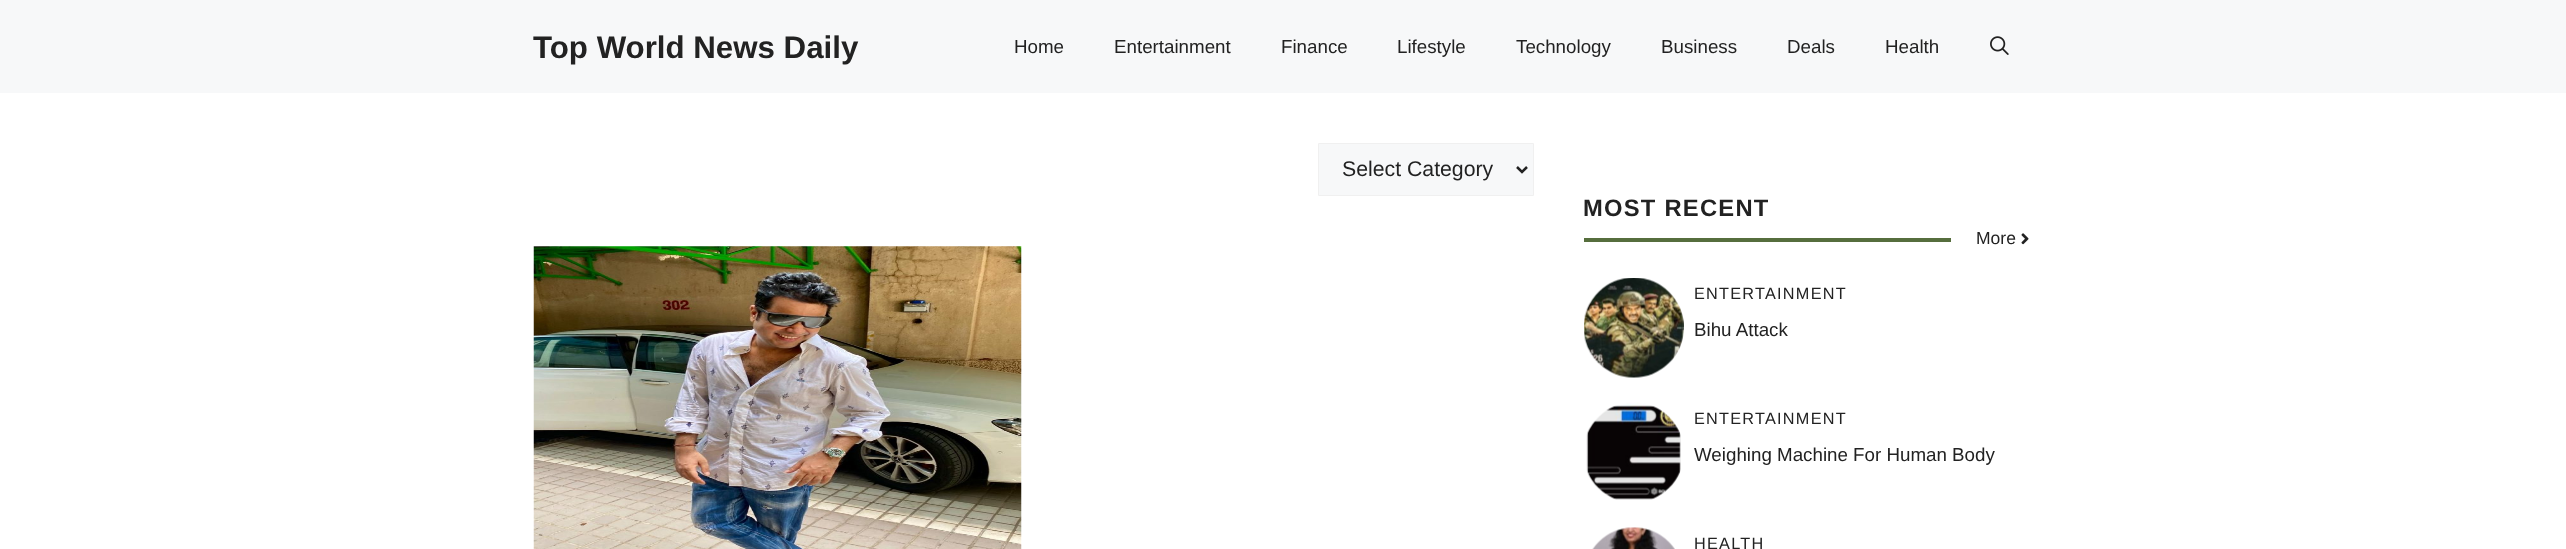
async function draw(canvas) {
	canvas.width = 2566;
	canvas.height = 549;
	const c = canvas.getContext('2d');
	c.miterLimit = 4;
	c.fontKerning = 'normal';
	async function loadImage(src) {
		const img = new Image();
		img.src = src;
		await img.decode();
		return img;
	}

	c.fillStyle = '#fff';
	c.fillRect(0, 0, 2566, 549);
	c.fillStyle = '#f7f8f9';
	c.fillRect(0, 0, 2566, 93);
	c.font = 'bold 31.25px Liberation Sans';
	c.fillStyle = '#222';
	c.fillText('Top World News Daily', 533, 58);
	c.font = '18.75px Liberation Sans';
	for (const [text, x, y] of [
		['Home', 1014, 53],
		['Entertainment', 1114, 53],
		['Finance', 1281, 53],
		['Lifestyle', 1397, 53],
		['Technology', 1516, 53],
		['Business', 1661, 53],
		['Deals', 1787, 53],
		['Health', 1885, 53],
	]) {
		c.fillText(text, x, y);
	}
	c.drawImage(await loadImage('img1.png'), 1990, 36, 19, 19);
	c.fillStyle = '#f7f8f9';
	c.beginPath();
	c.rect(1318.5, 143.5, 215, 52);
	c.fill();
	c.strokeStyle = '#f0f0f0';
	c.stroke();
	c.beginPath();
	c.moveTo(1517, 167);
	c.lineTo(1522, 172);
	c.lineTo(1527, 167);
	c.strokeStyle = '#222';
	c.lineWidth = 2.5;
	c.stroke();
	c.font = '21.25px Liberation Sans';
	c.fillStyle = '#222';
	c.fillText('Select Category', 1342, 176);
	c.drawImage(await loadImage('img2.png'), 533, 246, 489, 303);
	c.letterSpacing = '1.25px';
	c.font = 'bold 23.75px Liberation Sans';
	c.fillText('MOST RECENT', 1583, 216);
	c.fillStyle = '#566e3d';
	c.fillRect(1584, 238, 367, 4);
	c.letterSpacing = '0px';
	c.font = '17.5px Liberation Sans';
	c.fillStyle = '#222';
	c.fillText('More', 1976, 244);
	c.drawImage(await loadImage('img3.png'), 2021, 233, 8, 12);
	c.drawImage(await loadImage('img4.png'), 1584, 278, 100, 100);
	c.letterSpacing = '1.25px';
	c.font = '16.25px Liberation Sans';
	c.fillText('ENTERTAINMENT', 1694, 299);
	c.letterSpacing = '0px';
	c.font = '18.75px Liberation Sans';
	c.fillText('Bihu Attack', 1694, 336);
	c.drawImage(await loadImage('img5.png'), 1586, 402, 95, 98);
	c.letterSpacing = '1.25px';
	c.font = '16.25px Liberation Sans';
	c.fillText('ENTERTAINMENT', 1694, 424);
	c.letterSpacing = '0px';
	c.font = '18.75px Liberation Sans';
	c.fillText('Weighing Machine For Human Body', 1694, 461);
	c.drawImage(await loadImage('img6.png'), 1592, 527, 83, 22);
	c.letterSpacing = '1.25px';
	c.font = '16.25px Liberation Sans';
	c.fillText('HEALTH', 1694, 549);
}

draw(document.querySelector('canvas'));
